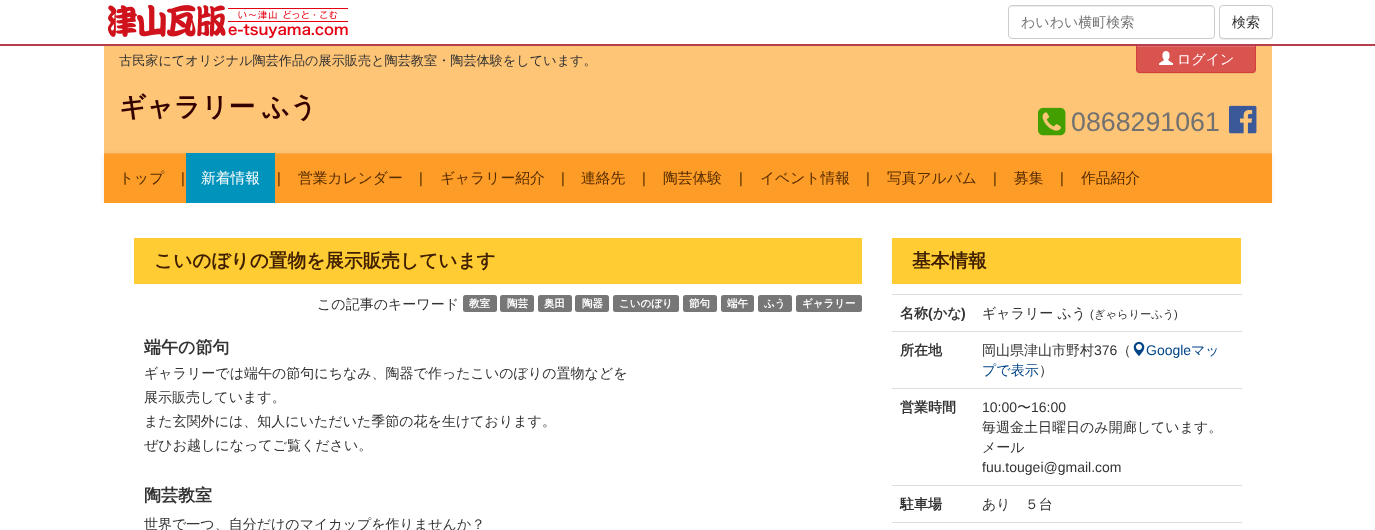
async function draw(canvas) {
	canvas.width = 1375;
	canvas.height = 530;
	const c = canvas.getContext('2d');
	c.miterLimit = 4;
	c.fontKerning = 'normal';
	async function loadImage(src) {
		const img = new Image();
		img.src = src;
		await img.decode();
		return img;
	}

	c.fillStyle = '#fff';
	c.fillRect(0, 0, 1375, 530);
	c.fillStyle = '#b5404b';
	c.fillRect(0, 44, 1375, 2);
	c.drawImage(await loadImage('img1.png'), 108, 5, 240, 33);
	c.fillStyle = '#ececec';
	c.beginPath();
	c.moveTo(1012, 7);
	c.lineTo(1211, 7);
	c.bezierCurveTo(1213, 7, 1214, 8, 1214, 10);
	c.bezierCurveTo(1214, 8, 1213, 6, 1211, 6);
	c.lineTo(1012, 6);
	c.bezierCurveTo(1010, 6, 1009, 8, 1009, 10);
	c.bezierCurveTo(1009, 8, 1010, 7, 1012, 7);
	c.closePath();
	c.fill();
	c.beginPath();
	c.roundRect(1008.5, 5.5, 206, 33, 3.5);
	c.strokeStyle = '#ccc';
	c.stroke();
	c.font = '500 14px WenQuanYi Zen Hei';
	c.fillStyle = '#777';
	c.fillText('わいわい横町検索', 1021, 27);
	c.fillStyle = '#00000012';
	c.filter = 'blur(0.5px)';
	c.beginPath();
	c.roundRect(1219, 6, 54, 34, 4);
	c.fill();
	c.filter = 'none';
	c.fillStyle = '#fff';
	c.beginPath();
	c.roundRect(1219.5, 5.5, 53, 33, 3.5);
	c.fill();
	c.stroke();
	c.fillStyle = '#333';
	c.fillText('検索', 1232, 27);
	c.fillStyle = '#fec576';
	c.fillRect(104, 46, 1168, 107);
	c.font = '500 13.15px WenQuanYi Zen Hei';
	c.fillStyle = '#333';
	c.fillText('古民家にてオリジナル陶芸作品の展示販売と陶芸教室・陶芸体験をしています。', 119, 65);
	c.fillStyle = '#00000012';
	c.filter = 'blur(0.5px)';
	c.beginPath();
	c.roundRect(1136, 47, 120, 27, 4);
	c.fill();
	c.filter = 'none';
	c.fillStyle = '#d9534f';
	c.beginPath();
	c.roundRect(1136, 46, 120, 27, [0, 0, 4, 4]);
	c.fill();
	c.fillStyle = '#df6d69';
	c.fillRect(1137, 46, 118, 1);
	c.fillStyle = '#d43f3a';
	c.beginPath();
	c.moveTo(1136, 46);
	c.lineTo(1256, 46);
	c.lineTo(1256, 69);
	c.bezierCurveTo(1256, 71, 1254, 73, 1252, 73);
	c.lineTo(1140, 73);
	c.bezierCurveTo(1138, 73, 1136, 71, 1136, 69);
	c.closePath();
	c.moveTo(1137, 46);
	c.lineTo(1255, 46);
	c.lineTo(1255, 69);
	c.bezierCurveTo(1255, 71, 1254, 72, 1252, 72);
	c.lineTo(1140, 72);
	c.bezierCurveTo(1138, 72, 1137, 71, 1137, 69);
	c.closePath();
	c.fill('evenodd');
	c.drawImage(await loadImage('img2.png'), 1159, 51, 14, 14);
	c.font = '500 14px WenQuanYi Zen Hei';
	c.fillStyle = '#fff';
	c.fillText('ログイン', 1177, 64);
	c.wordSpacing = '-1px';
	c.font = 'bold 26.75px WenQuanYi Zen Hei';
	c.fillStyle = '#300';
	c.fillText('ギャラリー ふう', 119, 116);
	c.drawImage(await loadImage('img3.png'), 1038, 107, 28, 29);
	c.wordSpacing = '0px';
	c.font = '26.75px Liberation Sans';
	c.fillStyle = '#727171';
	c.fillText('0868291061', 1071, 131);
	c.drawImage(await loadImage('img4.png'), 1229, 105, 28, 29);
	c.fillStyle = '#00000012';
	c.filter = 'blur(2.5px)';
	c.beginPath();
	c.rect(104, 154, 1168, 50);
	c.fill();
	c.filter = 'none';
	c.fillStyle = '#fd9c26';
	c.fillRect(104, 154, 1168, 49);
	c.fillStyle = '#fdab47';
	c.fillRect(104, 153, 1168, 1);
	c.font = '500 14.75px WenQuanYi Zen Hei';
	c.fillStyle = '#572c00';
	c.fillText('トップ', 119, 183);
	c.font = '14.75px Liberation Sans';
	c.fillText('|', 181, 183);
	c.fillStyle = '#0093bb';
	c.fillRect(186, 153, 89, 50);
	c.font = '500 14.75px WenQuanYi Zen Hei';
	c.fillStyle = '#fff';
	c.fillText('新着情報', 201, 183);
	c.font = '14.75px Liberation Sans';
	c.fillStyle = '#572c00';
	c.fillText('|', 277, 183);
	c.font = '500 14.75px WenQuanYi Zen Hei';
	c.fillText('営業カレンダー', 298, 183);
	c.font = '14.75px Liberation Sans';
	c.fillText('|', 419, 183);
	c.font = '500 14.75px WenQuanYi Zen Hei';
	c.fillText('ギャラリー紹介', 440, 183);
	c.font = '14.75px Liberation Sans';
	c.fillText('|', 561, 183);
	c.font = '500 14.75px WenQuanYi Zen Hei';
	c.fillText('連絡先', 581, 183);
	c.font = '14.75px Liberation Sans';
	c.fillText('|', 642, 183);
	c.font = '500 14.75px WenQuanYi Zen Hei';
	c.fillText('陶芸体験', 663, 183);
	c.font = '14.75px Liberation Sans';
	c.fillText('|', 739, 183);
	c.font = '500 14.75px WenQuanYi Zen Hei';
	c.fillText('イベント情報', 760, 183);
	c.font = '14.75px Liberation Sans';
	c.fillText('|', 866, 183);
	c.font = '500 14.75px WenQuanYi Zen Hei';
	c.fillText('写真アルバム', 887, 183);
	c.font = '14.75px Liberation Sans';
	c.fillText('|', 993, 183);
	c.font = '500 14.75px WenQuanYi Zen Hei';
	c.fillText('募集', 1014, 183);
	c.font = '14.75px Liberation Sans';
	c.fillText('|', 1060, 183);
	c.font = '500 14.75px WenQuanYi Zen Hei';
	c.fillText('作品紹介', 1081, 183);
	for (const [x, y, w, h, color] of [
		[104, 203, 1168, 4, '#fff'],
		[1272, 203, 1, 2, '#fff'],
		[103, 203, 1, 2, '#fff'],
		[134, 238, 728, 46, '#fc3'],
	]) {
		c.fillStyle = color;
		c.fillRect(x, y, w, h);
	}
	c.font = 'bold 18.7px WenQuanYi Zen Hei';
	c.fillStyle = '#402000';
	c.fillText('こいのぼりの置物を展示販売しています', 154, 267);
	c.font = '500 14px WenQuanYi Zen Hei';
	c.fillStyle = '#333';
	c.fillText('この記事のキーワード', 317, 309);
	c.fillStyle = '#777';
	c.beginPath();
	c.roundRect(463, 295, 34, 17, 2.5);
	c.fill();
	c.font = 'bold 10.5px WenQuanYi Zen Hei';
	c.fillStyle = '#fff';
	c.fillText('教室', 469, 307);
	c.fillStyle = '#777';
	c.beginPath();
	c.roundRect(500, 295, 34, 17, 2.5);
	c.fill();
	c.fillStyle = '#fff';
	c.fillText('陶芸', 507, 307);
	c.fillStyle = '#777';
	c.beginPath();
	c.roundRect(538, 295, 34, 17, 2.5);
	c.fill();
	c.fillStyle = '#fff';
	c.fillText('奥田', 544, 307);
	c.fillStyle = '#777';
	c.beginPath();
	c.roundRect(575, 295, 34, 17, 2.5);
	c.fill();
	c.fillStyle = '#fff';
	c.fillText('陶器', 582, 307);
	c.fillStyle = '#777';
	c.beginPath();
	c.roundRect(613, 295, 66, 17, 2.5);
	c.fill();
	c.fillStyle = '#fff';
	c.fillText('こいのぼり', 619, 307);
	c.fillStyle = '#777';
	c.beginPath();
	c.roundRect(683, 295, 34, 17, 2.5);
	c.fill();
	c.fillStyle = '#fff';
	c.fillText('節句', 689, 307);
	c.fillStyle = '#777';
	c.beginPath();
	c.roundRect(721, 295, 33, 17, 2.5);
	c.fill();
	c.fillStyle = '#fff';
	c.fillText('端午', 727, 307);
	c.fillStyle = '#777';
	c.beginPath();
	c.roundRect(758, 295, 34, 17, 2.5);
	c.fill();
	c.fillStyle = '#fff';
	c.fillText('ふう', 764, 307);
	c.fillStyle = '#777';
	c.beginPath();
	c.roundRect(796, 295, 66, 17, 2.5);
	c.fill();
	c.fillStyle = '#fff';
	c.fillText('ギャラリー', 802, 307);
	c.font = 'bold 17px WenQuanYi Zen Hei';
	c.fillStyle = '#333';
	c.fillText('端午の節句', 144, 353);
	c.font = '500 14px WenQuanYi Zen Hei';
	for (const [text, x, y] of [
		['ギャラリーでは端午の節句にちなみ、陶器で作ったこいのぼりの置物などを', 144, 378],
		['展示販売しています。', 144, 402],
		['また玄関外には、知人にいただいた季節の花を生けております。', 144, 426],
		['ぜひお越しになってご覧ください。', 144, 450],
	]) {
		c.fillText(text, x, y);
	}
	c.font = 'bold 17px WenQuanYi Zen Hei';
	c.fillText('陶芸教室', 144, 501);
	c.font = '500 14px WenQuanYi Zen Hei';
	c.fillText('世界で一つ、自分だけのマイカップを作りませんか？', 144, 529);
	c.fillStyle = '#fc3';
	c.fillRect(892, 238, 349, 46);
	c.font = 'bold 18.7px WenQuanYi Zen Hei';
	c.fillStyle = '#402000';
	c.fillText('基本情報', 912, 267);
	c.font = 'bold 14px WenQuanYi Zen Hei';
	c.fillStyle = '#333';
	c.fillText('名称', 900, 318);
	c.font = 'bold 14px Liberation Sans';
	c.fillText('(', 928, 318);
	c.font = 'bold 14px WenQuanYi Zen Hei';
	c.fillText('かな', 933, 318);
	c.font = 'bold 14px Liberation Sans';
	c.fillText(')', 961, 318);
	c.fillStyle = '#ddd';
	c.fillRect(892, 294, 350, 1);
	c.font = '500 14px WenQuanYi Zen Hei';
	c.fillStyle = '#333';
	c.fillText('ギャラリー ふう', 982, 318);
	c.font = '11.25px Liberation Sans';
	c.fillText('(', 1090, 318);
	c.font = '500 11.25px WenQuanYi Zen Hei';
	c.fillText('ぎゃらりーふう', 1094, 318);
	c.font = '11.25px Liberation Sans';
	c.fillText(')', 1174, 318);
	c.font = 'bold 14px WenQuanYi Zen Hei';
	c.fillText('所在地', 900, 355);
	c.fillStyle = '#ddd';
	c.fillRect(892, 331, 350, 1);
	c.font = '500 14px WenQuanYi Zen Hei';
	c.fillStyle = '#333';
	c.fillText('岡山県津山市野村', 982, 355);
	c.drawImage(await loadImage('img5.png'), 1133, 341, 12, 15);
	c.font = '14px Liberation Sans';
	c.fillStyle = '#048';
	c.fillText('Google', 1146, 355);
	c.font = '500 14px WenQuanYi Zen Hei';
	c.fillText('マッ', 1191, 355);
	c.fillText('プで表示', 982, 375);
	c.font = '14px Liberation Sans';
	c.fillStyle = '#333';
	c.fillText('376', 1094, 355);
	c.font = '500 14px WenQuanYi Zen Hei';
	c.fillText('（', 1117, 355);
	c.fillText('）', 1039, 375);
	c.font = 'bold 14px WenQuanYi Zen Hei';
	c.fillText('営業時間', 900, 412);
	c.fillStyle = '#ddd';
	c.fillRect(892, 388, 350, 1);
	c.font = '14px Liberation Sans';
	c.fillStyle = '#333';
	c.fillText('10:00', 982, 412);
	c.font = '500 14px WenQuanYi Zen Hei';
	c.fillText('〜', 1017, 412);
	c.font = '14px Liberation Sans';
	c.fillText('16:00', 1031, 412);
	c.font = '500 14px WenQuanYi Zen Hei';
	c.fillText('毎週金土日曜日のみ開廊しています。', 982, 432);
	c.fillText('メール', 982, 452);
	c.font = '14px Liberation Sans';
	c.fillText('fuu.tougei@gmail.com', 982, 472);
	c.font = 'bold 14px WenQuanYi Zen Hei';
	c.fillText('駐車場', 900, 509);
	c.fillStyle = '#ddd';
	c.fillRect(892, 485, 350, 1);
	c.font = '500 14px WenQuanYi Zen Hei';
	c.fillStyle = '#333';
	c.fillText('あり　５台', 982, 509);
	c.fillStyle = '#ddd';
	c.fillRect(892, 522, 350, 1);
}

draw(document.querySelector('canvas'));
